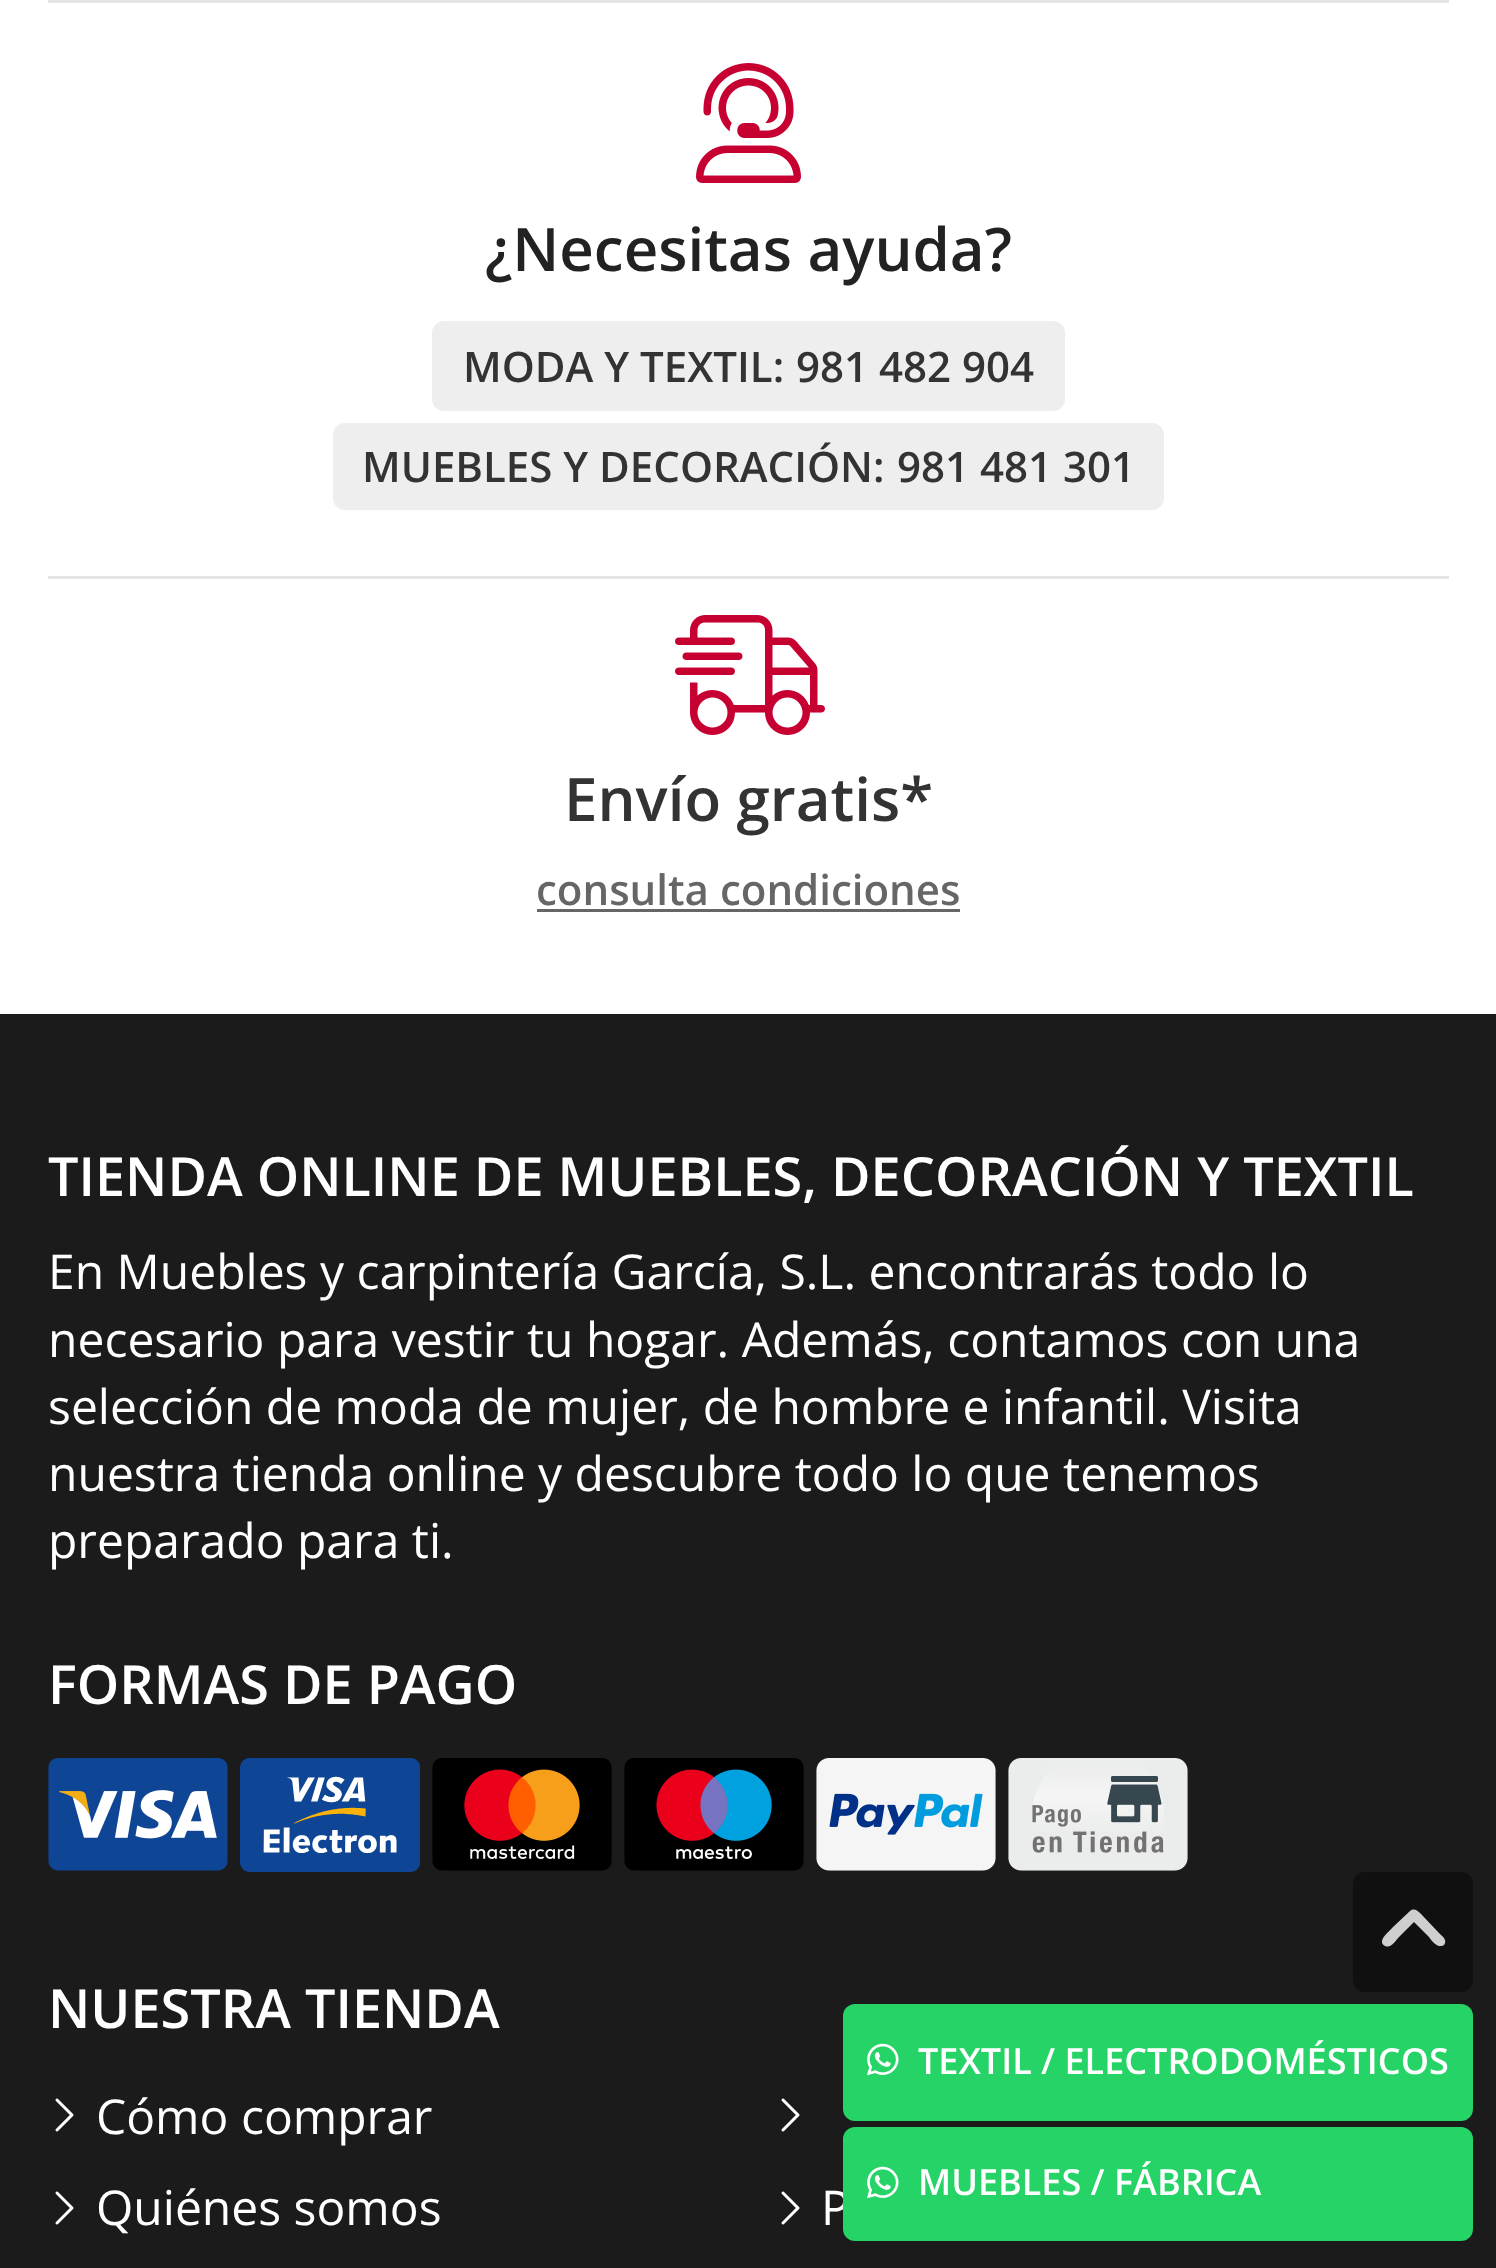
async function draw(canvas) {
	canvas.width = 1496;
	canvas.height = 2268;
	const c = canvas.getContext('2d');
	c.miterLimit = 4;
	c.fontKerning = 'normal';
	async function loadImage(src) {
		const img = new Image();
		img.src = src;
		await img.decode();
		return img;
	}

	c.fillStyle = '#fff';
	c.fillRect(0, 0, 1496, 2268);
	c.fillStyle = '#e5e5e5';
	c.fillRect(48, 0, 1401, 3);
	c.fillRect(48, 576, 1401, 3);
	c.drawImage(await loadImage('img1.png'), 696, 63, 105, 120);
	c.font = '600 60px Open Sans';
	c.fillStyle = '#222';
	c.fillText('¿Necesitas ayuda?', 485, 271);
	c.fillStyle = '#eee';
	c.beginPath();
	c.roundRect(432, 321, 633, 90, 12);
	c.fill();
	c.font = '600 42px Open Sans';
	c.fillStyle = '#333';
	c.fillText('MODA Y TEXTIL:', 463, 382);
	c.fillText('981 482 904', 796, 382);
	c.fillStyle = '#eee';
	c.beginPath();
	c.roundRect(333, 423, 831, 87, 12);
	c.fill();
	c.fillStyle = '#333';
	c.fillText('MUEBLES Y DECORACIÓN:', 362, 482);
	c.fillText('981 481 301', 897, 482);
	c.drawImage(await loadImage('img2.png'), 675, 615, 150, 120);
	c.font = '600 60px Open Sans';
	c.fillText('Envío gratis*', 564, 821);
	c.font = '600 42px Open Sans';
	c.fillStyle = '#666';
	c.fillText('consulta condiciones', 536, 905);
	c.fillRect(537, 909, 423, 3);
	c.fillStyle = '#1b1b1b';
	c.fillRect(0, 1014, 1496, 1254);
	c.font = '600 54px Open Sans';
	c.fillStyle = '#fff';
	c.fillText('TIENDA ONLINE DE MUEBLES, DECORACIÓN Y TEXTIL', 48, 1196);
	c.font = '48px Open Sans';
	for (const [text, x, y] of [
		['En Muebles y carpintería García, S.L. encontrarás todo lo', 48, 1289],
		['necesario para vestir tu hogar. Además, contamos con una', 48, 1357],
		['selección de moda de mujer, de hombre e infantil. Visita', 48, 1424],
		['nuestra tienda online y descubre todo lo que tenemos', 48, 1491],
		['preparado para ti.', 48, 1558],
	]) {
		c.fillText(text, x, y);
	}
	c.font = '600 54px Open Sans';
	c.fillText('FORMAS DE PAGO', 48, 1704);
	c.drawImage(await loadImage('img3.png'), 48, 1758, 180, 113);
	c.drawImage(await loadImage('img4.png'), 240, 1758, 180, 114);
	c.drawImage(await loadImage('img5.png'), 432, 1758, 180, 113);
	c.drawImage(await loadImage('img6.png'), 624, 1758, 180, 113);
	c.drawImage(await loadImage('img7.png'), 816, 1758, 180, 113);
	c.drawImage(await loadImage('img8.png'), 1008, 1758, 180, 113);
	c.fillText('NUESTRA TIENDA', 48, 2028);
	c.drawImage(await loadImage('img9.png'), 55, 2098, 19, 34);
	c.font = '48px Open Sans';
	c.fillText('Cómo comprar', 96, 2134);
	c.drawImage(await loadImage('img9.png'), 781, 2098, 19, 34);
	c.drawImage(await loadImage('img9.png'), 55, 2191, 19, 34);
	c.fillText('Quiénes somos', 96, 2225);
	c.drawImage(await loadImage('img9.png'), 781, 2191, 19, 34);
	c.fillText('P', 821, 2225);
	c.fillStyle = '#101010';
	c.beginPath();
	c.roundRect(1353, 1872, 120, 120, 12);
	c.fill();
	c.fillStyle = '#cfcfcf';
	c.beginPath();
	c.moveTo(1410, 1911);
	c.bezierCurveTo(1415, 1907, 1419, 1912, 1422, 1915);
	c.lineTo(1439, 1933);
	c.bezierCurveTo(1442, 1936, 1448, 1940, 1444, 1945);
	c.bezierCurveTo(1443, 1946, 1441, 1946, 1439, 1946);
	c.bezierCurveTo(1435, 1945, 1431, 1940, 1429, 1937);
	c.lineTo(1414, 1922);
	c.lineTo(1399, 1937);
	c.bezierCurveTo(1396, 1940, 1391, 1949, 1385, 1946);
	c.bezierCurveTo(1376, 1941, 1390, 1931, 1392, 1928);
	c.closePath();
	c.fill();
	c.fillStyle = '#25d366';
	c.beginPath();
	c.roundRect(843, 2004, 630, 117, 12);
	c.fill();
	c.drawImage(await loadImage('img10.png'), 867, 2043, 32, 33);
	c.font = '600 36px Open Sans';
	c.fillStyle = '#fff';
	c.fillText('TEXTIL / ELECTRODOMÉSTICOS', 918, 2074);
	c.fillStyle = '#25d366';
	c.beginPath();
	c.roundRect(843, 2127, 630, 114, 12);
	c.fill();
	c.drawImage(await loadImage('img10.png'), 867, 2166, 32, 33);
	c.fillStyle = '#fff';
	c.fillText('MUEBLES / FÁBRICA', 918, 2195);
}

draw(document.querySelector('canvas'));
